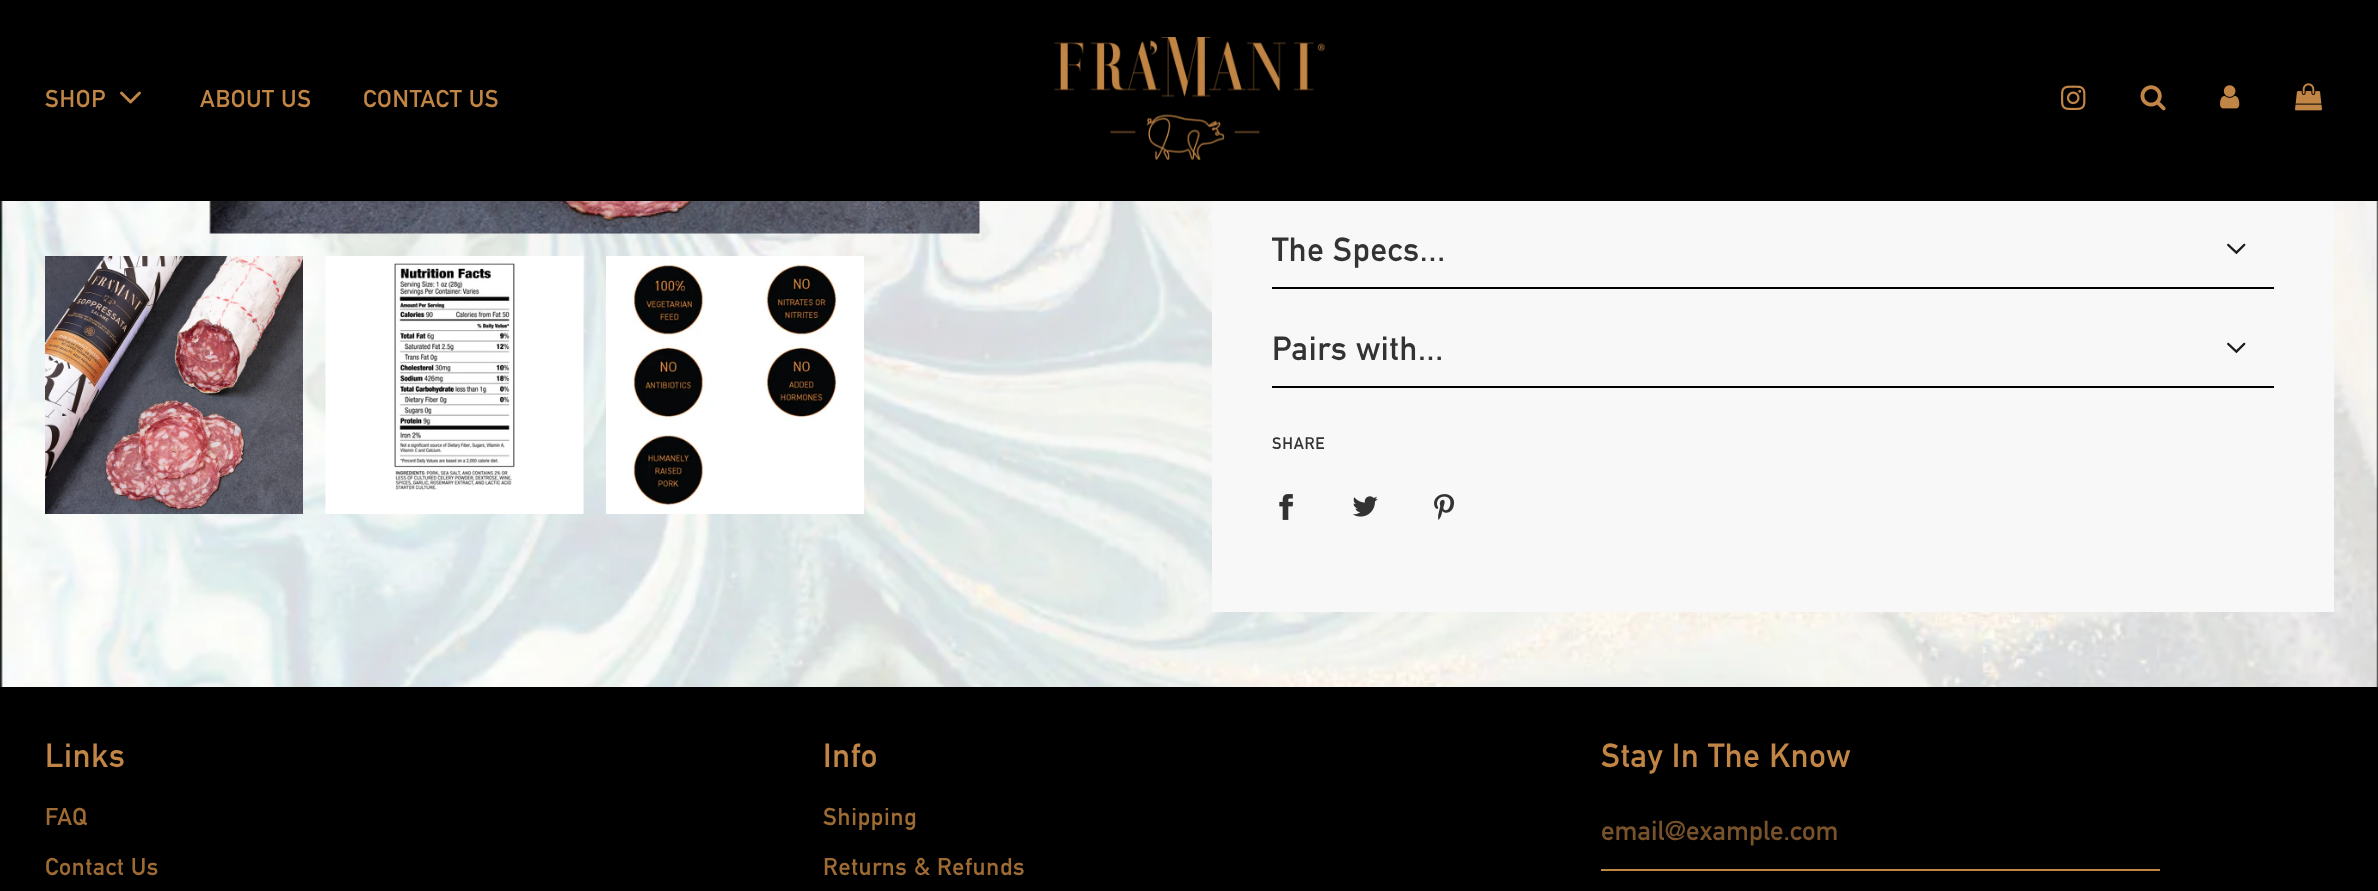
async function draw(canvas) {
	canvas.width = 2378;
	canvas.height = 891;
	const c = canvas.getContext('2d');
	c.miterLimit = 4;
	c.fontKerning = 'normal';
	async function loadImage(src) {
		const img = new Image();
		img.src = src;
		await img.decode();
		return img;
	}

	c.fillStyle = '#fff';
	c.fillRect(0, 0, 2378, 891);
	c.drawImage(await loadImage('img1.png'), 0, 201, 2378, 486);
	c.fillStyle = '#000';
	c.fillRect(0, 0, 2378, 201);
	c.letterSpacing = '0.75px';
	c.font = 'bold 24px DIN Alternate';
	c.fillStyle = '#c18545';
	c.fillText('SHOP', 45, 107);
	c.beginPath();
	c.moveTo(121.5, 93);
	c.lineTo(130.5, 102);
	c.lineTo(139.5, 93);
	c.strokeStyle = '#c18545';
	c.lineWidth = 3;
	c.lineCap = 'round';
	c.lineJoin = 'round';
	c.stroke();
	c.fillText('ABOUT US', 200, 107);
	c.fillText('CONTACT US', 363, 107);
	c.drawImage(await loadImage('img2.png'), 1054, 37, 271, 123);
	c.drawImage(await loadImage('img3.png'), 2061, 85, 25, 25);
	c.drawImage(await loadImage('img4.png'), 2140, 85, 26, 26);
	c.drawImage(await loadImage('img5.png'), 2220, 85, 20, 24);
	c.drawImage(await loadImage('img6.png'), 2295, 83, 27, 28);
	c.drawImage(await loadImage('img7.png'), 209, 201, 771, 33);
	c.drawImage(await loadImage('img8.png'), 45, 256, 258, 258);
	c.drawImage(await loadImage('img9.png'), 325, 256, 259, 258);
	c.drawImage(await loadImage('img10.png'), 606, 256, 258, 258);
	c.fillStyle = '#f8f8f8';
	c.fillRect(1212, 201, 1122, 411);
	c.fillStyle = '#000';
	c.fillRect(1272, 287, 1002, 2);
	c.font = 'bold 33px DIN Alternate';
	c.fillStyle = '#333';
	c.fillText('The Specs...', 1272, 261);
	c.drawImage(await loadImage('img11.png'), 2227, 243, 19, 12);
	c.fillStyle = '#000';
	c.fillRect(1272, 386, 1002, 2);
	c.fillStyle = '#333';
	c.fillText('Pairs with...', 1272, 360);
	c.drawImage(await loadImage('img11.png'), 2227, 342, 19, 12);
	c.font = 'bold 16.5px DIN Alternate';
	c.fillText('SHARE', 1272, 449);
	c.drawImage(await loadImage('img12.png'), 1279, 494, 15, 26);
	c.drawImage(await loadImage('img13.png'), 1352, 496, 26, 21);
	c.drawImage(await loadImage('img14.png'), 1434, 494, 21, 26);
	c.fillStyle = '#000';
	c.fillRect(0, 687, 2378, 204);
	c.font = 'bold 33px DIN Alternate';
	c.fillStyle = '#c18545';
	c.fillText('Links', 45, 767);
	c.font = 'bold 24px DIN Alternate';
	c.fillStyle = '#9e6b35';
	c.fillText('FAQ', 45, 825);
	c.fillText('Contact Us', 45, 875);
	c.font = 'bold 33px DIN Alternate';
	c.fillStyle = '#c18545';
	c.fillText('Info', 823, 767);
	c.font = 'bold 24px DIN Alternate';
	c.fillStyle = '#9e6b35';
	c.fillText('Shipping', 823, 825);
	c.fillText('Returns & Refunds', 823, 875);
	c.font = 'bold 33px DIN Alternate';
	c.fillStyle = '#c18545';
	c.fillText('Stay In The Know', 1601, 767);
	c.fillRect(1601, 869, 559, 2);
	c.letterSpacing = '0px';
	c.font = 'bold 27px DIN Alternate';
	c.fillStyle = '#78522b';
	c.fillText('email@example.com', 1601, 840);
}

draw(document.querySelector('canvas'));
